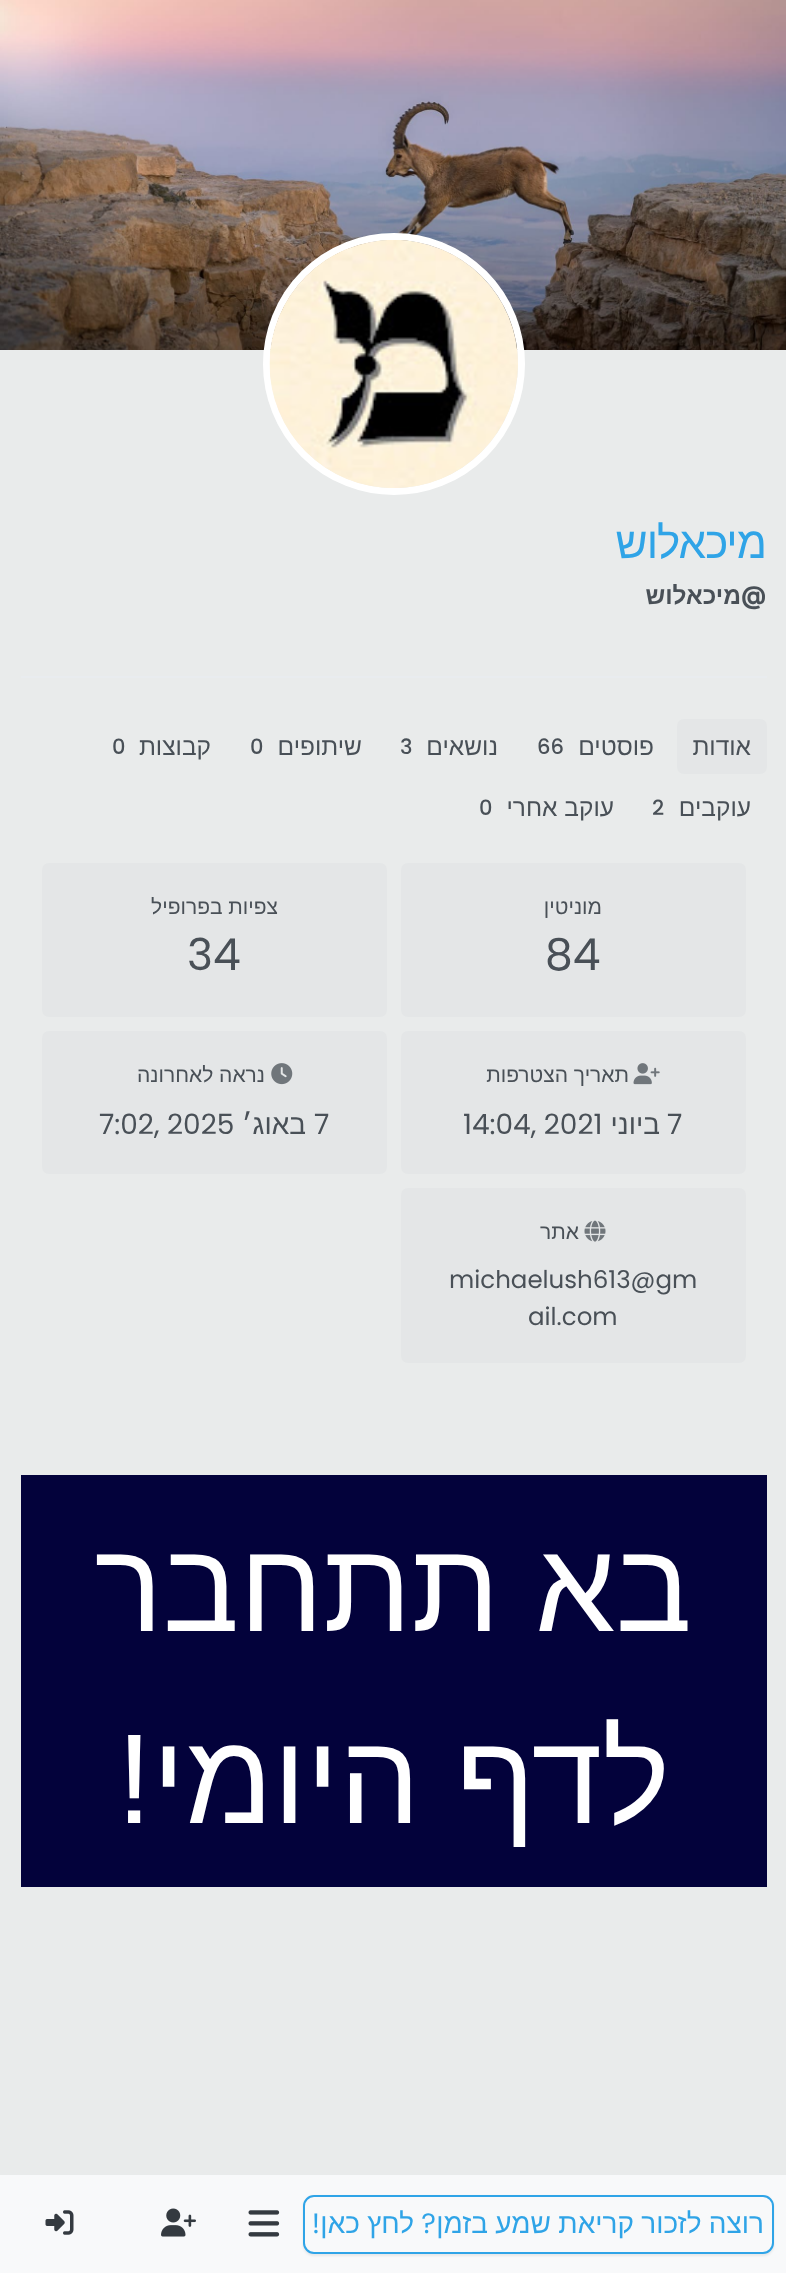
async function draw(canvas) {
	canvas.width = 786;
	canvas.height = 2273;
	const c = canvas.getContext('2d');
	c.miterLimit = 4;
	c.fontKerning = 'normal';
	async function loadImage(src) {
		const img = new Image();
		img.src = src;
		await img.decode();
		return img;
	}

	c.fillStyle = '#e9ebeb';
	c.fillRect(0, 0, 786, 2273);
	c.drawImage(await loadImage('img1.png'), 0, 0, 786, 350);
	c.fillStyle = '#e9ecef';
	c.fillRect(21, 676, 746, 2);
	c.beginPath();
	c.arc(394, 364, 127.5, 0, 2 * Math.PI);
	c.strokeStyle = '#fff';
	c.lineWidth = 7;
	c.stroke();
	c.drawImage(await loadImage('img2.png'), 269, 240, 249, 248);
	c.letterSpacing = '-1px';
	c.direction = 'rtl';
	c.font = '44px Liberation Sans';
	c.fillStyle = '#2fa4e7';
	c.fillText('מיכאלוש', 766, 558);
	c.letterSpacing = '0px';
	c.font = 'bold 24.5px Inter';
	c.fillStyle = '#495057';
	c.fillText('@', 766, 604);
	c.font = 'bold 24.5px Liberation Sans';
	c.fillText('מיכאלוש', 741, 604);
	c.fillStyle = '#e4e6e7';
	c.beginPath();
	c.roundRect(677, 719, 90, 55, 7);
	c.fill();
	c.font = '24.5px Liberation Sans';
	c.fillStyle = '#495057';
	c.fillText('אודות', 751, 755);
	c.fillText('פוסטים', 654, 755);
	c.direction = 'ltr';
	c.font = '500 21px Poppins';
	c.fillText('66', 537, 754);
	c.direction = 'rtl';
	c.font = '24.5px Liberation Sans';
	c.fillText('נושאים', 498, 755);
	c.direction = 'ltr';
	c.font = '500 21px Poppins';
	c.fillText('3', 400, 754);
	c.direction = 'rtl';
	c.font = '24.5px Liberation Sans';
	c.fillText('שיתופים', 362, 755);
	c.direction = 'ltr';
	c.font = '500 21px Poppins';
	c.fillText('0', 250, 754);
	c.direction = 'rtl';
	c.font = '24.5px Liberation Sans';
	c.fillText('קבוצות', 211, 755);
	c.direction = 'ltr';
	c.font = '500 21px Poppins';
	c.fillText('0', 112, 754);
	c.direction = 'rtl';
	c.font = '24.5px Liberation Sans';
	c.fillText('עוקבים', 751, 816);
	c.direction = 'ltr';
	c.font = '500 21px Poppins';
	c.fillText('2', 652, 815);
	c.direction = 'rtl';
	c.font = '24.5px Liberation Sans';
	c.fillText('עוקב אחרי', 614, 816);
	c.direction = 'ltr';
	c.font = '500 21px Poppins';
	c.fillText('0', 479, 815);
	c.fillStyle = '#e4e6e7';
	c.beginPath();
	c.roundRect(401, 863, 345, 154, 7);
	c.fill();
	c.direction = 'rtl';
	c.font = '21px Liberation Sans';
	c.fillStyle = '#495057';
	c.fillText('מוניטין', 602, 914);
	c.direction = 'ltr';
	c.font = '44px Poppins';
	c.fillText('84', 545, 970);
	c.fillStyle = '#e4e6e7';
	c.beginPath();
	c.roundRect(42, 863, 345, 154, 7);
	c.fill();
	c.direction = 'rtl';
	c.font = '21px Liberation Sans';
	c.fillStyle = '#495057';
	c.fillText('צפיות בפרופיל', 278, 914);
	c.direction = 'ltr';
	c.font = '44px Poppins';
	c.fillText('34', 187, 970);
	c.fillStyle = '#e4e6e7';
	c.beginPath();
	c.roundRect(401, 1031, 345, 143, 7);
	c.fill();
	c.drawImage(await loadImage('img3.png'), 633, 1063, 27, 22);
	c.direction = 'rtl';
	c.font = '21px Liberation Sans';
	c.fillStyle = '#495057';
	c.fillText('תאריך הצטרפות', 629, 1082);
	c.direction = 'ltr';
	c.font = '28px Poppins';
	c.fillText('7', 667, 1134);
	c.direction = 'rtl';
	c.font = '28px Liberation Sans';
	c.fillText('ביוני', 660, 1134);
	c.direction = 'ltr';
	c.font = '28px Poppins';
	c.fillText('14:04, 2021', 463, 1134);
	c.fillStyle = '#e4e6e7';
	c.beginPath();
	c.roundRect(42, 1031, 345, 143, 7);
	c.fill();
	c.drawImage(await loadImage('img4.png'), 271, 1063, 22, 22);
	c.direction = 'rtl';
	c.font = '21px Liberation Sans';
	c.fillStyle = '#495057';
	c.fillText('נראה לאחרונה', 265, 1082);
	c.direction = 'ltr';
	c.font = '28px Poppins';
	c.fillText('7', 314, 1134);
	c.direction = 'rtl';
	c.font = '28px Liberation Sans';
	c.fillText('באוג׳', 306, 1134);
	c.direction = 'ltr';
	c.font = '28px Poppins';
	c.fillText('7:02, 2025', 99, 1134);
	c.fillStyle = '#e4e6e7';
	c.beginPath();
	c.roundRect(401, 1188, 345, 175, 7);
	c.fill();
	c.drawImage(await loadImage('img5.png'), 584, 1220, 22, 22);
	c.direction = 'rtl';
	c.font = '21px Liberation Sans';
	c.fillStyle = '#495057';
	c.fillText('אתר', 579, 1239);
	c.direction = 'ltr';
	c.font = '24.5px Poppins';
	c.fillText('michaelush613@gm', 449, 1288);
	c.fillText('ail.com', 528, 1325);
	c.fillStyle = '#03023b';
	c.fillRect(21, 1475, 746, 412);
	c.direction = 'rtl';
	c.font = '127.75px Liberation Sans';
	c.fillStyle = '#fff';
	c.fillText('בא תתחבר', 692, 1631);
	c.fillText('לדף היומי!', 670, 1823);
	c.fillStyle = '#f8f9fa';
	c.fillRect(0, 2175, 786, 98);
	c.fillStyle = '#00000012';
	c.filter = 'blur(1px)';
	c.beginPath();
	c.roundRect(303, 2196, 471, 60, 11);
	c.fill();
	c.filter = 'none';
	c.fillStyle = '#f8f9fa';
	c.beginPath();
	c.roundRect(304, 2196, 469, 57, 10);
	c.fill();
	c.strokeStyle = '#2fa4e7';
	c.lineWidth = 2;
	c.stroke();
	c.wordSpacing = '-0.5px';
	c.font = '28px Liberation Sans';
	c.fillStyle = '#2fa4e7';
	c.fillText('רוצה לזכור קריאת שמע בזמן', 764, 2233);
	c.wordSpacing = '0px';
	c.font = '28px Poppins';
	c.fillText('?', 436, 2233);
	c.wordSpacing = '-0.5px';
	c.font = '28px Liberation Sans';
	c.fillText('לחץ כאן', 414, 2233);
	c.wordSpacing = '0px';
	c.font = '28px Poppins';
	c.fillText('!', 320, 2233);
	c.drawImage(await loadImage('img6.png'), 248, 2210, 32, 27);
	c.drawImage(await loadImage('img7.png'), 161, 2208, 35, 29);
	c.drawImage(await loadImage('img8.png'), 45, 2210, 29, 25);
}

draw(document.querySelector('canvas'));
